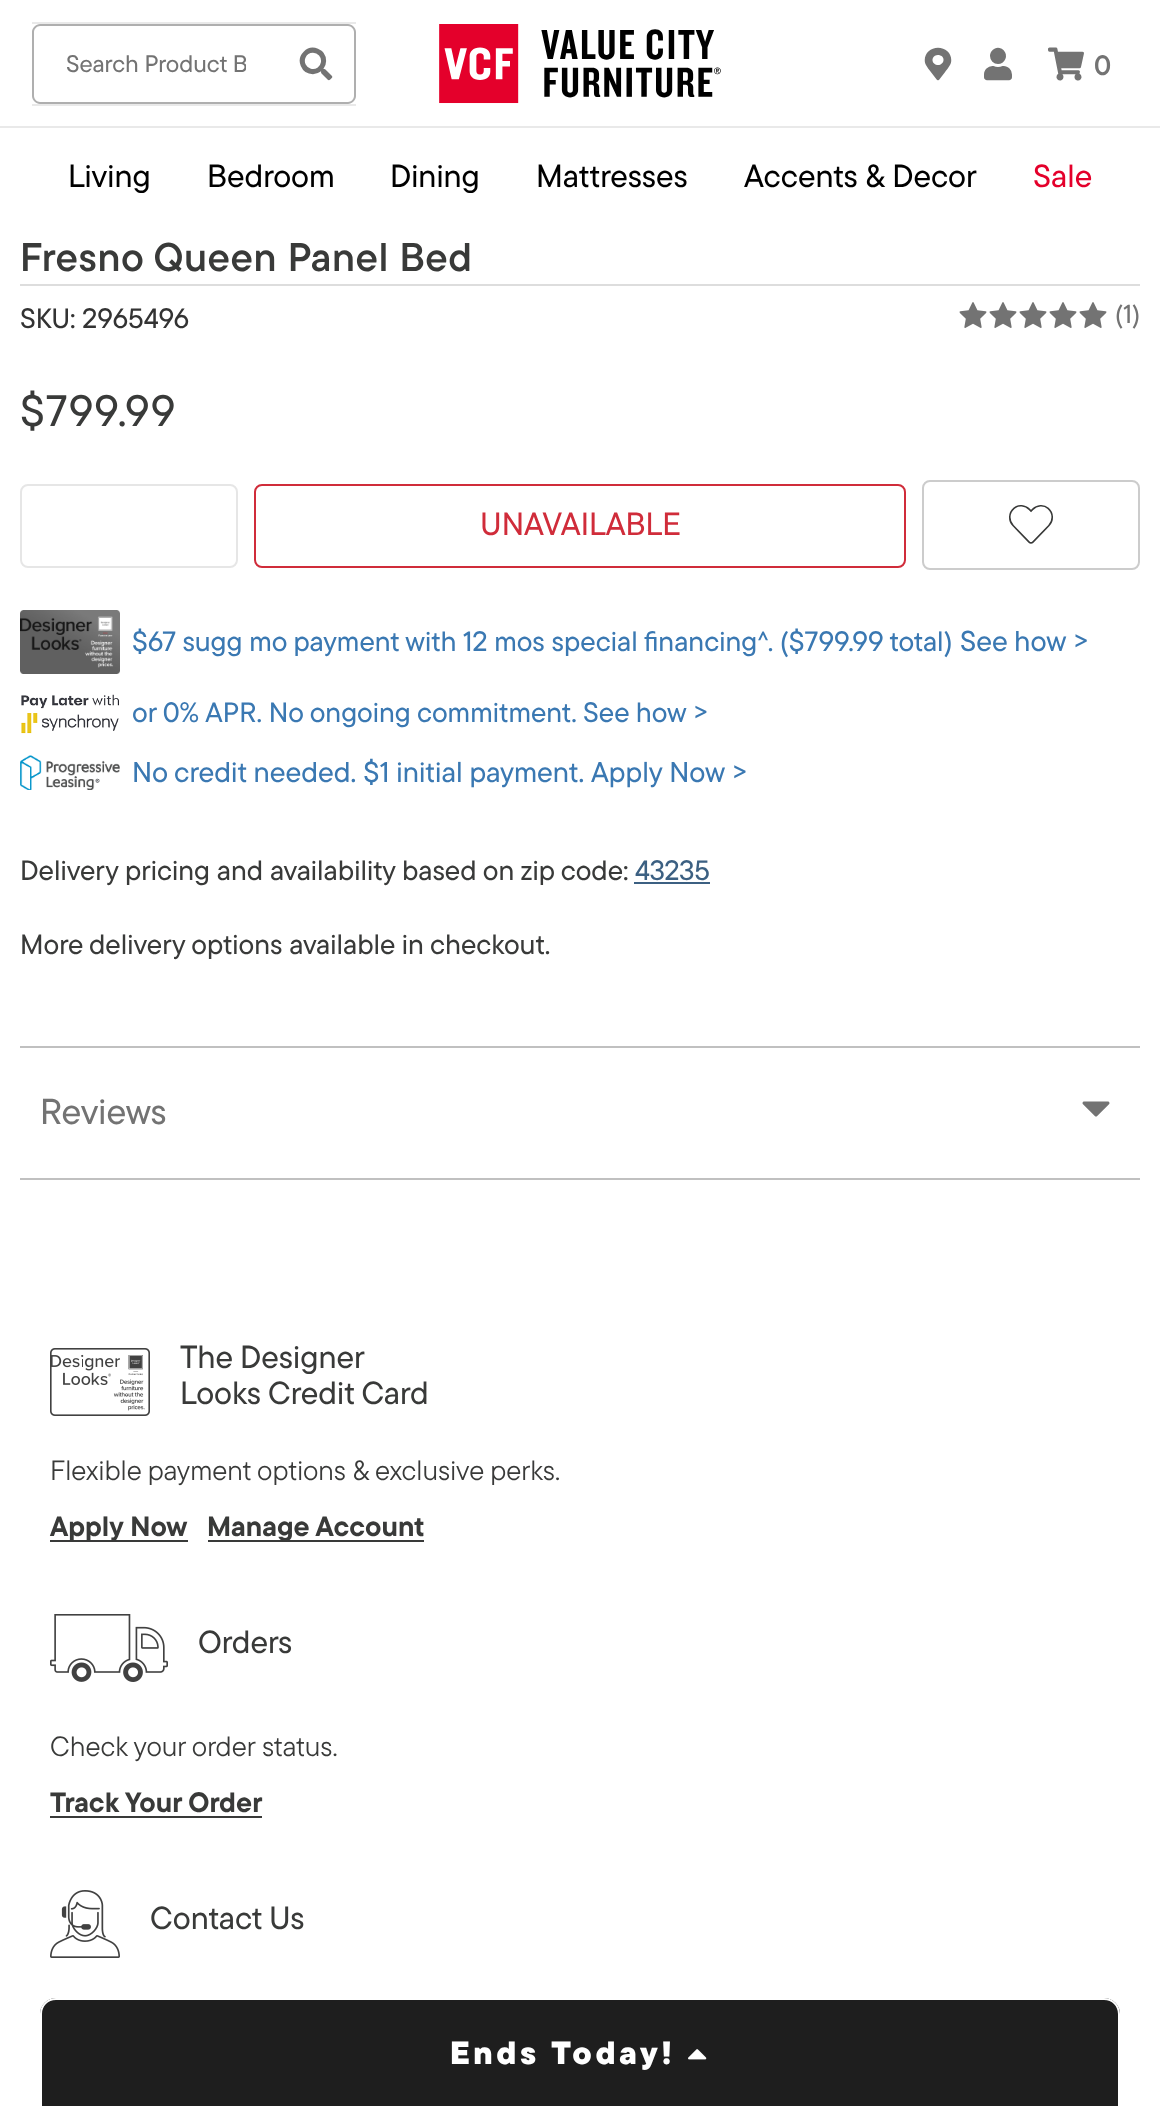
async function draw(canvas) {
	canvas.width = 1160;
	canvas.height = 2106;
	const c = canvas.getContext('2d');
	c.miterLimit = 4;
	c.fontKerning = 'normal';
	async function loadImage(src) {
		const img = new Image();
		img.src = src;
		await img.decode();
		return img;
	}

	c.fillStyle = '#fff';
	c.fillRect(0, 0, 1160, 2106);
	for (const [x, y, w, h, color] of [
		[0, 126, 1160, 2, '#e9e9e9'],
		[32, 22, 324, 2, '#e9e9e9'],
		[32, 104, 324, 2, '#e9e9e9'],
	]) {
		c.fillStyle = color;
		c.fillRect(x, y, w, h);
	}
	c.fillStyle = '#afafaf';
	c.beginPath();
	c.moveTo(40, 24);
	c.lineTo(278, 24);
	c.lineTo(278, 104);
	c.lineTo(40, 104);
	c.bezierCurveTo(36, 104, 32, 100, 32, 96);
	c.lineTo(32, 32);
	c.bezierCurveTo(32, 28, 36, 24, 40, 24);
	c.closePath();
	c.moveTo(40, 26);
	c.lineTo(278, 26);
	c.lineTo(278, 102);
	c.lineTo(40, 102);
	c.bezierCurveTo(37, 102, 34, 99, 34, 96);
	c.lineTo(34, 32);
	c.bezierCurveTo(34, 29, 37, 26, 40, 26);
	c.closePath();
	c.fill('evenodd');
	c.save();
	c.beginPath();
	c.rect(66, 46, 180, 34);
	c.clip();
	c.font = '500 24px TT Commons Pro';
	c.fillStyle = '#737373';
	c.fillText('Search Product B', 66, 72);
	c.restore();
	c.beginPath();
	c.moveTo(278, 24);
	c.lineTo(348, 24);
	c.bezierCurveTo(352, 24, 356, 28, 356, 32);
	c.lineTo(356, 96);
	c.bezierCurveTo(356, 100, 352, 104, 348, 104);
	c.lineTo(278, 104);
	c.closePath();
	c.moveTo(278, 26);
	c.lineTo(348, 26);
	c.bezierCurveTo(351, 26, 354, 29, 354, 32);
	c.lineTo(354, 96);
	c.bezierCurveTo(354, 99, 351, 102, 348, 102);
	c.lineTo(278, 102);
	c.closePath();
	c.fill('evenodd');
	c.drawImage(await loadImage('img1.png'), 299, 47, 34, 34);
	c.drawImage(await loadImage('img2.png'), 439, 24, 282, 80);
	c.drawImage(await loadImage('img3.png'), 924, 47, 28, 34);
	c.drawImage(await loadImage('img4.png'), 984, 47, 28, 34);
	c.drawImage(await loadImage('img5.png'), 1048, 47, 36, 34);
	c.font = '600 28px TT Commons Pro';
	c.fillStyle = '#737373';
	c.fillText('0', 1094, 75);
	c.font = '500 32px TT Commons Pro';
	c.fillStyle = '#000';
	for (const [text, x, y] of [
		['Living', 68, 187],
		['Bedroom', 207, 187],
		['Dining', 390, 187],
		['Mattresses', 536, 187],
		['Accents & Decor', 744, 187],
	]) {
		c.fillText(text, x, y);
	}
	c.fillStyle = '#e4002b';
	c.fillText('Sale', 1033, 187);
	c.fillStyle = '#ddd';
	c.fillRect(20, 284, 1120, 2);
	c.letterSpacing = '0.6px';
	c.font = '600 40px TT Commons Pro';
	c.fillStyle = '#393a39';
	c.fillText('Fresno Queen Panel Bed', 20, 271);
	c.letterSpacing = '0px';
	c.font = '500 28px TT Commons Pro';
	c.fillStyle = '#333';
	c.fillText('SKU: 2965496', 20, 328);
	c.drawImage(await loadImage('img6.png'), 959, 302, 28, 26);
	c.drawImage(await loadImage('img6.png'), 989, 302, 28, 26);
	c.drawImage(await loadImage('img7.png'), 1019, 302, 28, 26);
	c.drawImage(await loadImage('img6.png'), 1049, 302, 28, 26);
	c.drawImage(await loadImage('img6.png'), 1079, 302, 28, 26);
	c.font = '500 26px TT Commons Pro';
	c.fillStyle = '#737373';
	c.fillText('(1)', 1115, 323);
	c.letterSpacing = '1px';
	c.font = '500 44px TT Commons Pro';
	c.fillStyle = '#393a39';
	c.fillText('$799.99', 20, 426);
	c.beginPath();
	c.roundRect(21, 485, 216, 82, 7);
	c.strokeStyle = '#e6e6e6';
	c.lineWidth = 2;
	c.stroke();
	c.beginPath();
	c.roundRect(255, 485, 650, 82, 7);
	c.strokeStyle = '#d02c3a';
	c.stroke();
	c.letterSpacing = '0px';
	c.font = '500 32px TT Commons Pro';
	c.fillStyle = '#d02c3a';
	c.fillText('UNAVAILABLE', 480, 535);
	c.beginPath();
	c.roundRect(923, 481, 216, 88, 7);
	c.strokeStyle = '#ccc';
	c.stroke();
	c.drawImage(await loadImage('img8.png'), 1009, 505, 44, 39);
	c.drawImage(await loadImage('img9.png'), 20, 610, 100, 64);
	c.font = '500 28px TT Commons Pro';
	c.fillStyle = '#3a78b2';
	c.fillText('$67 sugg mo payment with 12 mos special financing^. ($799.99 total)', 132, 651);
	c.font = '500 28.75px TT Commons Pro';
	c.fillText('See how >', 960, 651);
	c.drawImage(await loadImage('img10.png'), 21, 694, 98, 40);
	c.font = '500 28px TT Commons Pro';
	c.fillText('or 0% APR. No ongoing commitment.', 132, 722);
	c.fillText('See how >', 583, 722);
	c.drawImage(await loadImage('img11.png'), 20, 755, 100, 35);
	c.font = '500 28.75px TT Commons Pro';
	c.fillText('No credit needed. $1 initial payment.', 132, 782);
	c.fillText('Apply Now >', 591, 782);
	c.font = '500 28px TT Commons Pro';
	c.fillStyle = '#393a39';
	c.fillText('Delivery pricing and availability based on zip code:', 20, 880);
	c.fillStyle = '#3c6082';
	c.fillText('43235', 635, 880);
	c.fillRect(634, 882, 76, 2);
	c.fillStyle = '#393a39';
	c.fillText('More delivery options available in checkout.', 20, 954);
	c.fillStyle = '#c0c0c0';
	c.fillRect(20, 1046, 1120, 2);
	c.font = '500 36px TT Commons Pro';
	c.fillStyle = '#737373';
	c.fillText('Reviews', 40, 1124);
	c.drawImage(await loadImage('img12.png'), 1082, 1101, 28, 16);
	c.fillStyle = '#c0c0c0';
	c.fillRect(20, 1178, 1120, 2);
	c.drawImage(await loadImage('img13.png'), 50, 1348, 100, 68);
	c.font = '500 32px TT Commons Pro';
	c.fillStyle = '#393a39';
	c.fillText('The Designer', 180, 1368);
	c.fillText('Looks Credit Card', 180, 1404);
	c.font = '28px TT Commons Pro';
	c.fillText('Flexible payment options & exclusive perks.', 50, 1480);
	c.fillRect(50, 1540, 138, 2);
	c.font = 'bold 28px TT Commons Pro';
	c.fillText('Apply Now', 50, 1536);
	c.fillRect(208, 1540, 216, 2);
	c.fillText('Manage Account', 207, 1536);
	c.drawImage(await loadImage('img14.png'), 50, 1614, 118, 68);
	c.font = '500 32px TT Commons Pro';
	c.fillText('Orders', 198, 1653);
	c.font = '28px TT Commons Pro';
	c.fillText('Check your order status.', 50, 1756);
	c.font = 'bold 28px TT Commons Pro';
	c.fillText('Track Your Order', 50, 1812);
	c.fillRect(50, 1816, 212, 2);
	c.drawImage(await loadImage('img15.png'), 50, 1890, 70, 68);
	c.font = '500 32px TT Commons Pro';
	c.fillText('Contact Us', 150, 1929);
	c.fillStyle = '#1e1e1e';
	c.beginPath();
	c.roundRect(40, 1998, 1080, 108, [16, 16, 0, 0]);
	c.fill();
	c.fillStyle = '#fff';
	c.beginPath();
	c.moveTo(56, 1998);
	c.lineTo(1104, 1998);
	c.bezierCurveTo(1113, 1998, 1120, 2005, 1120, 2014);
	c.lineTo(1120, 2106);
	c.lineTo(40, 2106);
	c.lineTo(40, 2014);
	c.bezierCurveTo(40, 2005, 47, 1998, 56, 1998);
	c.closePath();
	c.moveTo(56, 2000);
	c.lineTo(1104, 2000);
	c.bezierCurveTo(1112, 2000, 1118, 2006, 1118, 2014);
	c.lineTo(1118, 2106);
	c.lineTo(42, 2106);
	c.lineTo(42, 2014);
	c.bezierCurveTo(42, 2006, 48, 2000, 56, 2000);
	c.closePath();
	c.fill('evenodd');
	c.letterSpacing = '3.75px';
	c.font = '900 32px TT Commons Pro';
	c.fillText('Ends Today!', 450, 2064);
	c.drawImage(await loadImage('img16.png'), 688, 2049, 19, 11);
}

draw(document.querySelector('canvas'));
